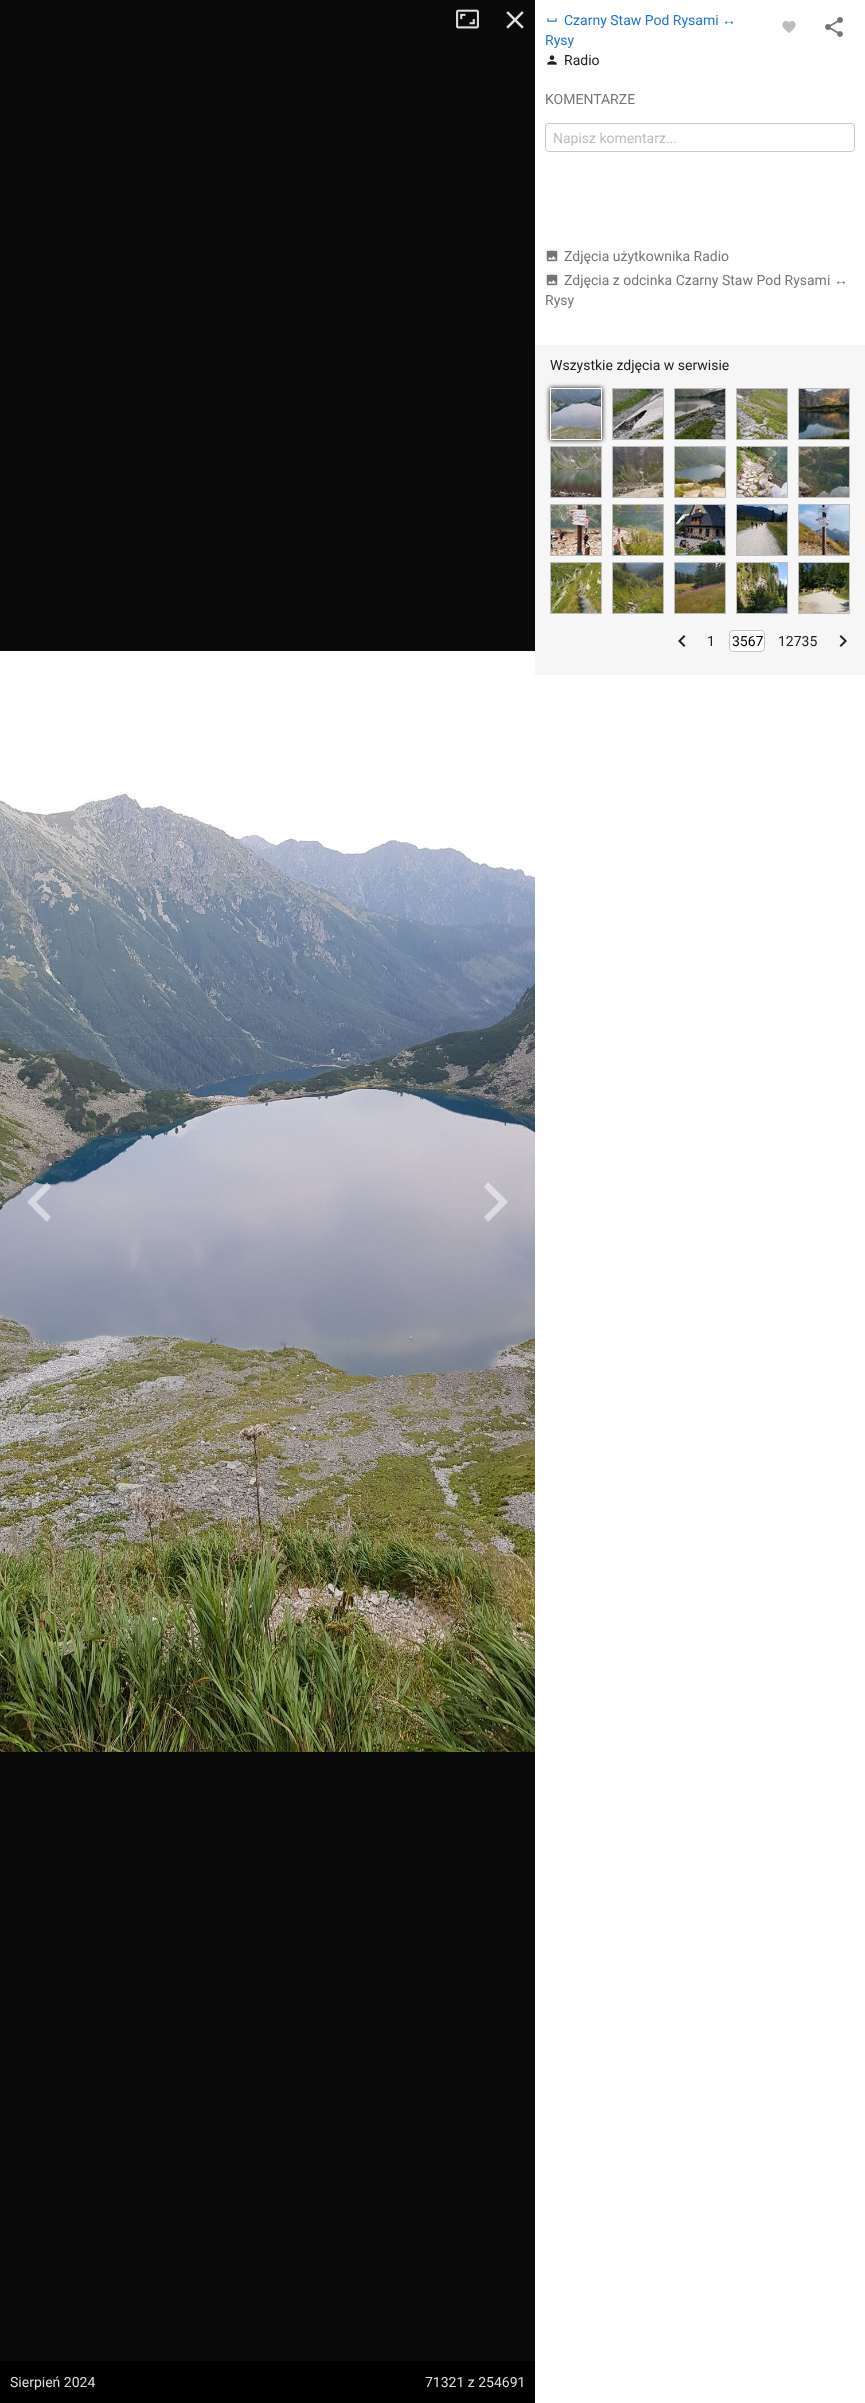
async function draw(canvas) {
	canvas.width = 865;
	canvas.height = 2403;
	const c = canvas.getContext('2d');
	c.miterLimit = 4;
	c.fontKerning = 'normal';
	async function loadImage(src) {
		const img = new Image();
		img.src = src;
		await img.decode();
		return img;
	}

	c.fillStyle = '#0a0a0a';
	c.fillRect(0, 0, 865, 2403);
	c.fillStyle = '#fff';
	c.fillRect(535, 0, 330, 2403);
	c.drawImage(await loadImage('img1.png'), 547, 18, 10, 4);
	c.font = '14px Roboto';
	c.fillStyle = '#1976d2';
	c.fillText('Czarny Staw Pod Rysami', 564, 25);
	c.font = '14px Liberation Sans';
	c.fillText('↔', 722, 25);
	c.font = '14px Roboto';
	c.fillText('Rysy', 545, 45);
	c.drawImage(await loadImage('img2.png'), 547, 55, 10, 10);
	c.fillStyle = '#212121';
	c.fillText('Radio', 564, 65);
	c.drawImage(await loadImage('img3.png'), 782, 21, 14, 12);
	c.drawImage(await loadImage('img4.png'), 825, 17, 18, 20);
	c.fillStyle = '#757575';
	c.fillText('KOMENTARZE', 545, 104);
	c.beginPath();
	c.roundRect(545.5, 123.5, 309, 28, 3.5);
	c.strokeStyle = '#c8c8c8';
	c.stroke();
	c.fillStyle = '#bdbdbd';
	c.fillText('Napisz komentarz...', 553, 143);
	c.drawImage(await loadImage('img5.png'), 546, 250, 12, 12);
	c.fillStyle = '#757575';
	c.fillText('Zdjęcia użytkownika Radio', 564, 261);
	c.drawImage(await loadImage('img5.png'), 546, 274, 12, 12);
	c.fillText('Zdjęcia z odcinka Czarny Staw Pod Rysami', 564, 285);
	c.font = '14px Liberation Sans';
	c.fillText('↔', 834, 285);
	c.font = '14px Roboto';
	c.fillText('Rysy', 545, 305);
	c.fillStyle = '#f6f6f6';
	c.fillRect(535, 345, 330, 330);
	c.fillStyle = '#212121';
	c.fillText('Wszystkie zdjęcia w serwisie', 550, 370);
	c.fillStyle = '#000';
	c.filter = 'blur(2.5px)';
	c.beginPath();
	c.rect(550, 388, 52, 52);
	c.fill();
	c.filter = 'none';
	c.strokeStyle = '#fff';
	c.strokeRect(550.5, 388.5, 51, 51);
	c.drawImage(await loadImage('img6.png'), 551, 389, 50, 50);
	c.strokeStyle = '#bdbdbd';
	c.strokeRect(612.5, 388.5, 51, 51);
	c.drawImage(await loadImage('img7.png'), 613, 389, 50, 50);
	c.strokeRect(674.5, 388.5, 51, 51);
	c.drawImage(await loadImage('img8.png'), 675, 389, 50, 50);
	c.strokeRect(736.5, 388.5, 51, 51);
	c.drawImage(await loadImage('img9.png'), 737, 389, 50, 50);
	c.strokeRect(798.5, 388.5, 51, 51);
	c.drawImage(await loadImage('img10.png'), 799, 389, 50, 50);
	c.strokeRect(550.5, 446.5, 51, 51);
	c.drawImage(await loadImage('img11.png'), 551, 447, 50, 50);
	c.strokeRect(612.5, 446.5, 51, 51);
	c.drawImage(await loadImage('img12.png'), 613, 447, 50, 50);
	c.strokeRect(674.5, 446.5, 51, 51);
	c.drawImage(await loadImage('img13.png'), 675, 447, 50, 50);
	c.strokeRect(736.5, 446.5, 51, 51);
	c.drawImage(await loadImage('img14.png'), 737, 447, 50, 50);
	c.strokeRect(798.5, 446.5, 51, 51);
	c.drawImage(await loadImage('img15.png'), 799, 447, 50, 50);
	c.strokeRect(550.5, 504.5, 51, 51);
	c.drawImage(await loadImage('img16.png'), 551, 505, 50, 50);
	c.strokeRect(612.5, 504.5, 51, 51);
	c.drawImage(await loadImage('img17.png'), 613, 505, 50, 50);
	c.strokeRect(674.5, 504.5, 51, 51);
	c.drawImage(await loadImage('img18.png'), 675, 505, 50, 50);
	c.strokeRect(736.5, 504.5, 51, 51);
	c.drawImage(await loadImage('img19.png'), 737, 505, 50, 50);
	c.strokeRect(798.5, 504.5, 51, 51);
	c.drawImage(await loadImage('img20.png'), 799, 505, 50, 50);
	c.strokeRect(550.5, 562.5, 51, 51);
	c.drawImage(await loadImage('img21.png'), 551, 563, 50, 50);
	c.strokeRect(612.5, 562.5, 51, 51);
	c.drawImage(await loadImage('img22.png'), 613, 563, 50, 50);
	c.strokeRect(674.5, 562.5, 51, 51);
	c.drawImage(await loadImage('img23.png'), 675, 563, 50, 50);
	c.strokeRect(736.5, 562.5, 51, 51);
	c.drawImage(await loadImage('img24.png'), 737, 563, 50, 50);
	c.strokeRect(798.5, 562.5, 51, 51);
	c.drawImage(await loadImage('img25.png'), 799, 563, 50, 50);
	c.drawImage(await loadImage('img26.png'), 678, 635, 8, 12);
	c.fillStyle = '#212121';
	c.fillText('1', 707, 646);
	c.fillStyle = '#fff';
	c.beginPath();
	c.roundRect(729.5, 630.5, 35, 21, 3.5);
	c.fill();
	c.strokeStyle = '#c8c8c8';
	c.stroke();
	c.fillStyle = '#000';
	c.fillText('3567', 732, 646);
	c.fillStyle = '#212121';
	c.fillText('12735', 778, 646);
	c.drawImage(await loadImage('img27.png'), 839, 635, 8, 12);
	c.drawImage(await loadImage('img28.png'), 456, 9, 23, 20);
	c.drawImage(await loadImage('img29.png'), 506, 11, 18, 18);
	c.drawImage(await loadImage('img30.png'), 0, 651, 535, 1101);
	c.fillStyle = '#ffffff80';
	c.beginPath();
	c.moveTo(51, 1187);
	c.lineTo(47, 1182);
	c.lineTo(27, 1202);
	c.lineTo(47, 1222);
	c.lineTo(51, 1217);
	c.lineTo(36, 1202);
	c.closePath();
	c.fill();
	c.beginPath();
	c.moveTo(488, 1182);
	c.lineTo(484, 1187);
	c.lineTo(499, 1202);
	c.lineTo(484, 1217);
	c.lineTo(488, 1222);
	c.lineTo(508, 1202);
	c.closePath();
	c.fill();
	c.fillStyle = '#000';
	c.fillRect(0, 2361, 535, 42);
	c.fillStyle = '#dedede';
	c.fillText('Sierpień 2024', 10, 2387);
	c.fillText('71321 z 254691', 425, 2387);
}

draw(document.querySelector('canvas'));
